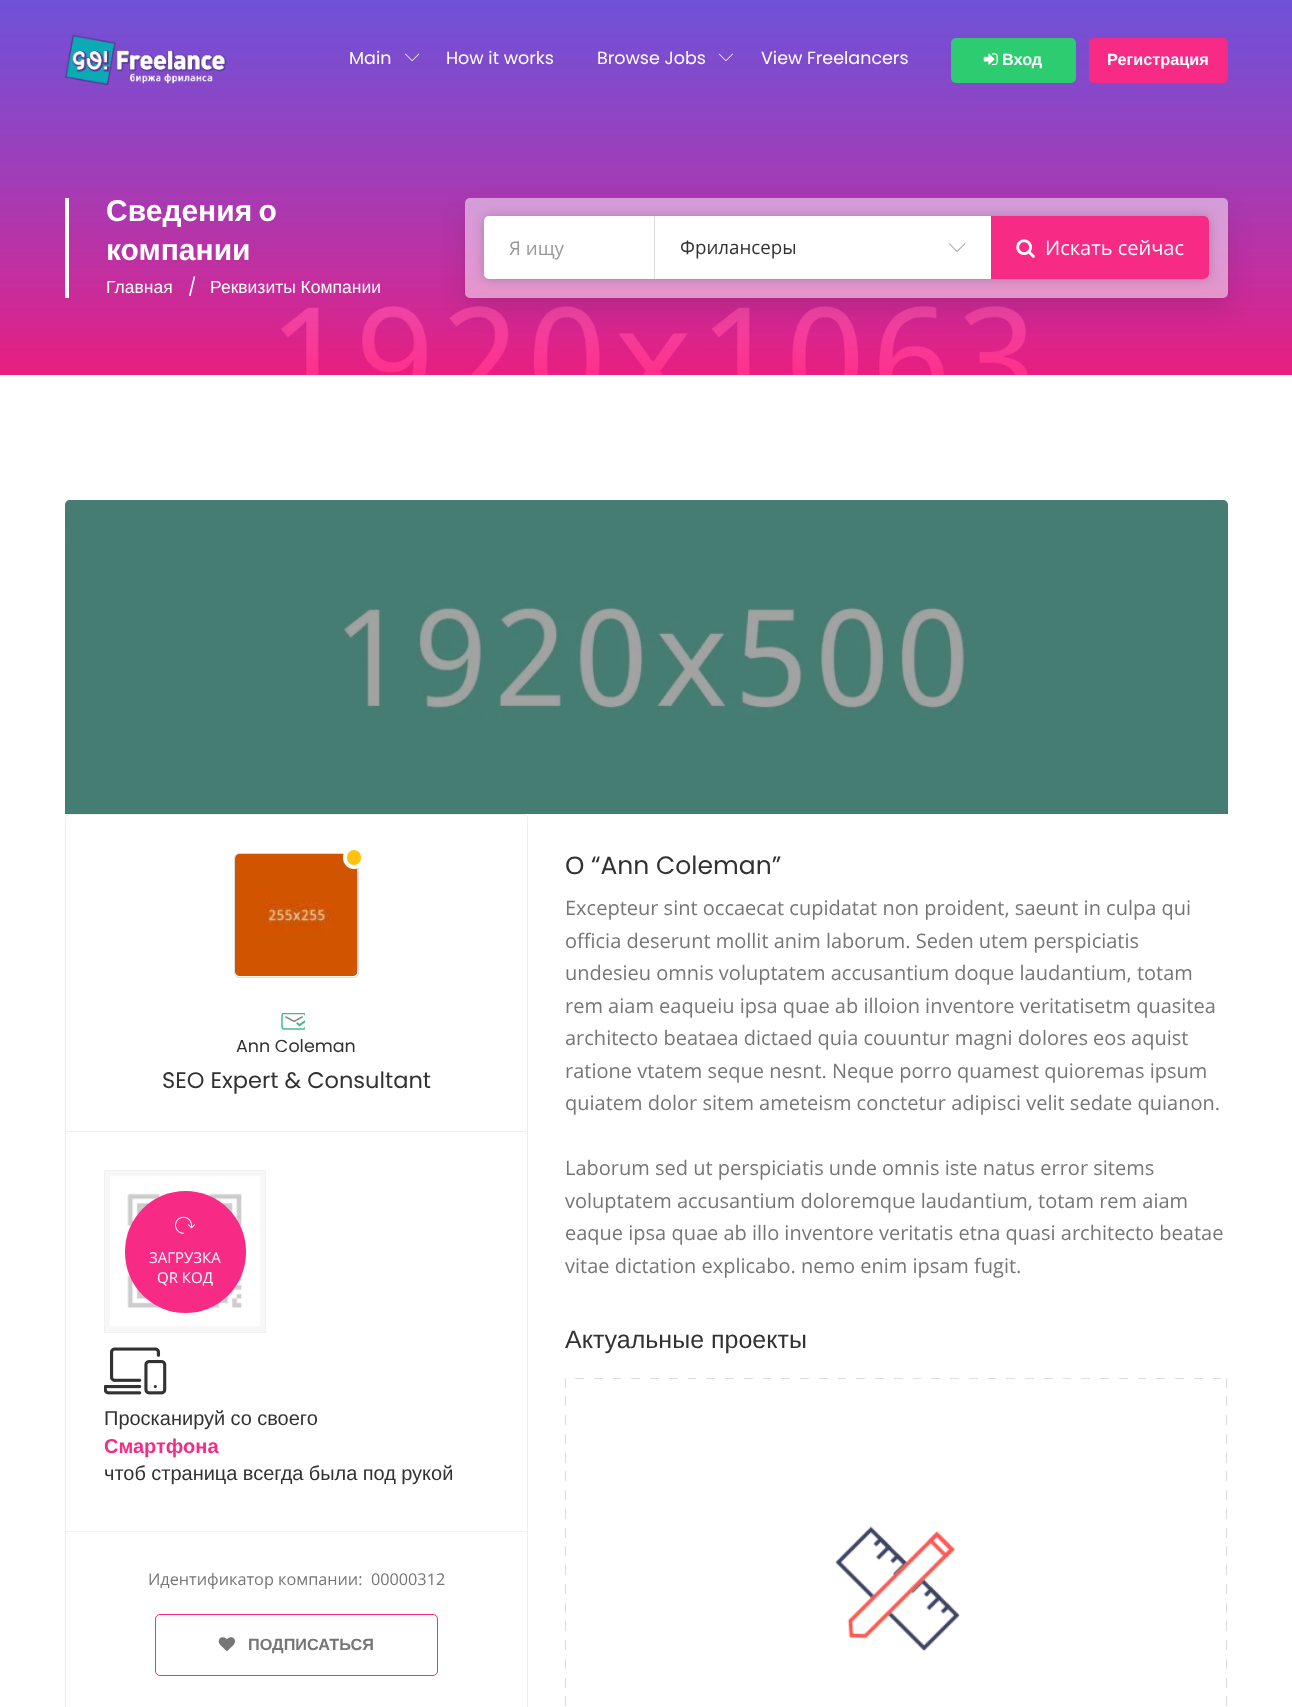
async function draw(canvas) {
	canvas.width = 1292;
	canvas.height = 1707;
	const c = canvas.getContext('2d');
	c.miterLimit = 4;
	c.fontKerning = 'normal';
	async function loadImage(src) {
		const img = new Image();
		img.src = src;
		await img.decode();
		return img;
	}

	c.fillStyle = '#fff';
	c.fillRect(0, 0, 1292, 1707);
	c.drawImage(await loadImage('img5.png'), 0, 0, 1292, 375);
	c.drawImage(await loadImage('img1.png'), 65, 35, 162, 50);
	c.font = '17.5px Poppins';
	c.fillText('Main', 349, 64);
	c.drawImage(await loadImage('img2.png'), 405, 53, 15, 9);
	c.fillText('How it works', 446, 64);
	c.fillText('Browse Jobs', 597, 64);
	c.drawImage(await loadImage('img3.png'), 718, 53, 15, 9);
	c.fillText('View Freelancers', 761, 64);
	c.fillStyle = '#2ecc71';
	c.beginPath();
	c.roundRect(951, 38, 125, 45, 5);
	c.fill();
	c.drawImage(await loadImage('img4.png'), 983, 53, 15, 12);
	c.font = 'bold 16.25px Liberation Sans';
	c.fillStyle = '#fff';
	c.fillText('Вход', 1002, 65);
	c.fillStyle = '#f72a85';
	c.beginPath();
	c.roundRect(1089, 38, 139, 45, 5);
	c.fill();
	c.fillStyle = '#fff';
	c.fillText('Регистрация', 1107, 65);
	c.fillRect(65, 198, 4, 100);
	c.wordSpacing = '-2px';
	c.font = 'bold 30px Liberation Sans';
	c.fillText('Сведения о', 106, 221);
	c.wordSpacing = '0px';
	c.fillText('компании', 106, 260);
	c.font = '17.5px Liberation Sans';
	c.fillText('Главная', 106, 293);
	c.font = '17.5px Poppins';
	c.fillText('/', 188, 293);
	c.font = '17.5px Liberation Sans';
	c.fillText('Реквизиты Компании', 210, 293);
	c.save();
	c.beginPath();
	c.moveTo(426, 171);
	c.lineTo(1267, 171);
	c.lineTo(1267, 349);
	c.lineTo(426, 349);
	c.closePath();
	c.moveTo(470, 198);
	c.lineTo(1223, 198);
	c.bezierCurveTo(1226, 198, 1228, 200, 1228, 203);
	c.lineTo(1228, 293);
	c.bezierCurveTo(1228, 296, 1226, 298, 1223, 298);
	c.lineTo(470, 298);
	c.bezierCurveTo(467, 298, 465, 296, 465, 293);
	c.lineTo(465, 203);
	c.bezierCurveTo(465, 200, 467, 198, 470, 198);
	c.closePath();
	c.clip('evenodd');
	c.fillStyle = '#0000001a';
	c.filter = 'blur(12.5px)';
	c.beginPath();
	c.roundRect(465, 210, 763, 100, 5);
	c.fill();
	c.filter = 'none';
	c.restore();
	c.fillStyle = '#ffffff80';
	c.beginPath();
	c.roundRect(465, 198, 763, 100, 5);
	c.fill();
	c.fillStyle = '#00000033';
	c.filter = 'blur(6px)';
	c.beginPath();
	c.roundRect(484, 216, 725, 63, 5);
	c.fill();
	c.filter = 'none';
	c.fillStyle = '#fff';
	c.beginPath();
	c.roundRect(484, 216, 725, 63, 5);
	c.fill();
	c.font = '18.75px Open Sans';
	c.fillStyle = '#999';
	c.fillText('Я ищу', 509, 255);
	c.fillStyle = '#ddd';
	c.fillRect(654, 216, 1, 63);
	c.fillStyle = '#323232';
	c.fillText('Фрилансеры', 680, 254);
	c.drawImage(await loadImage('img6.png'), 948, 243, 18, 9);
	c.fillStyle = '#f72a85';
	c.beginPath();
	c.roundRect(991, 216, 218, 63, [0, 5, 5, 0]);
	c.fill();
	c.drawImage(await loadImage('img7.png'), 1016, 239, 19, 19);
	c.font = '20px Open Sans';
	c.fillStyle = '#fff';
	c.fillText('Искать сейчас', 1045, 255);
	c.fillStyle = '#666';
	c.beginPath();
	c.roundRect(65, 500, 1163, 314, [5, 5, 0, 0]);
	c.fill();
	c.drawImage(await loadImage('img8.png'), 65, 500, 1163, 314);
	c.beginPath();
	c.roundRect(65.5, 814.5, 462, 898, 4.5);
	c.strokeStyle = '#eee';
	c.stroke();
	c.beginPath();
	c.roundRect(234.5, 853.5, 124, 124, 4.5);
	c.strokeStyle = '#ddd';
	c.stroke();
	c.drawImage(await loadImage('img9.png'), 235, 853, 123, 124);
	c.fillStyle = '#ffc30d';
	c.beginPath();
	c.roundRect(345, 848, 18, 19, 9);
	c.fill();
	c.strokeStyle = '#fff';
	c.lineWidth = 4;
	c.stroke();
	c.drawImage(await loadImage('img10.png'), 281, 1013, 24, 17);
	c.font = '17.5px Poppins';
	c.fillStyle = '#323232';
	c.fillText('Ann Coleman', 236, 1052);
	c.font = '22.5px Poppins';
	c.fillText('SEO Expert & Consultant', 162, 1088);
	c.fillStyle = '#eee';
	c.fillRect(66, 1131, 460, 1);
	c.fillStyle = '#f7f7f7';
	c.beginPath();
	c.rect(104.5, 1170.5, 161, 162);
	c.fill();
	c.strokeStyle = '#eff2f5';
	c.lineWidth = 1;
	c.stroke();
	c.drawImage(await loadImage('img11.png'), 110, 1176, 150, 150);
	c.fillStyle = '#ffffffcc';
	c.fillRect(127, 1191, 119, 121);
	c.fillStyle = '#f72a85';
	c.beginPath();
	c.roundRect(125, 1191, 121, 122, 60.5);
	c.fill();
	c.drawImage(await loadImage('img12.png'), 175, 1216, 20, 18);
	c.font = '15px Open Sans';
	c.fillStyle = '#fff';
	c.fillText('ЗАГРУЗКА', 149, 1263);
	c.fillText('QR КОД', 157, 1283);
	c.drawImage(await loadImage('img13.png'), 104, 1347, 63, 48);
	c.wordSpacing = '-0.25px';
	c.font = '20px Liberation Sans';
	c.fillStyle = '#323232';
	c.fillText('Просканируй со своего', 104, 1425);
	c.wordSpacing = '0px';
	c.font = 'bold 20px Liberation Sans';
	c.fillStyle = '#f72a85';
	c.fillText('Смартфона', 104, 1453);
	c.wordSpacing = '-0.25px';
	c.font = '20px Liberation Sans';
	c.fillStyle = '#323232';
	c.fillText('чтоб страница всегда была под рукой', 104, 1480);
	c.fillStyle = '#f2f2f2';
	c.fillRect(66, 1531, 460, 1);
	c.wordSpacing = '0px';
	c.font = '16.25px Open Sans';
	c.fillStyle = '#767676';
	c.fillText('Идентификатор компании:  00000312', 148, 1585);
	c.beginPath();
	c.roundRect(155.5, 1614.5, 282, 61, 4.5);
	c.strokeStyle = '#f72a85';
	c.stroke();
	c.drawImage(await loadImage('img14.png'), 218, 1637, 17, 15);
	c.font = 'bold 16.25px Liberation Sans';
	c.fillText('ПОДПИСАТЬСЯ', 248, 1650);
	c.font = '25px Liberation Sans';
	c.fillStyle = '#323232';
	c.fillText('О', 565, 874);
	c.font = '25px Poppins';
	c.fillText('“Ann Coleman”', 591, 874);
	c.font = '20px Open Sans';
	c.fillStyle = '#767676';
	for (const [text, x, y] of [
		['Excepteur sint occaecat cupidatat non proident, saeunt in culpa qui', 565, 915],
		['officia deserunt mollit anim laborum. Seden utem perspiciatis', 565, 948],
		['undesieu omnis voluptatem accusantium doque laudantium, totam', 565, 980],
		['rem aiam eaqueiu ipsa quae ab illoion inventore veritatisetm quasitea', 565, 1013],
		['architecto beataea dictaed quia couuntur magni dolores eos aquist', 565, 1045],
		['ratione vtatem seque nesnt. Neque porro quamest quioremas ipsum', 565, 1078],
		['quiatem dolor sitem ameteism conctetur adipisci velit sedate quianon.', 565, 1110],
		['Laborum sed ut perspiciatis unde omnis iste natus error sitems', 565, 1175],
		['voluptatem accusantium doloremque laudantium, totam rem aiam', 565, 1208],
		['eaque ipsa quae ab illo inventore veritatis etna quasi architecto beatae', 565, 1240],
		['vitae dictation explicabo. nemo enim ipsam fugit.', 565, 1273],
	]) {
		c.fillText(text, x, y);
	}
	c.font = '25px Liberation Sans';
	c.fillStyle = '#323232';
	c.fillText('Актуальные проекты', 565, 1348);
	c.drawImage(await loadImage('img15.png'), 565, 1378, 1, 328);
	c.drawImage(await loadImage('img16.png'), 575, 1378, 646, 1);
	c.drawImage(await loadImage('img17.png'), 835, 1526, 125, 126);
	c.drawImage(await loadImage('img15.png'), 1226, 1378, 1, 328);
}

draw(document.querySelector('canvas'));
